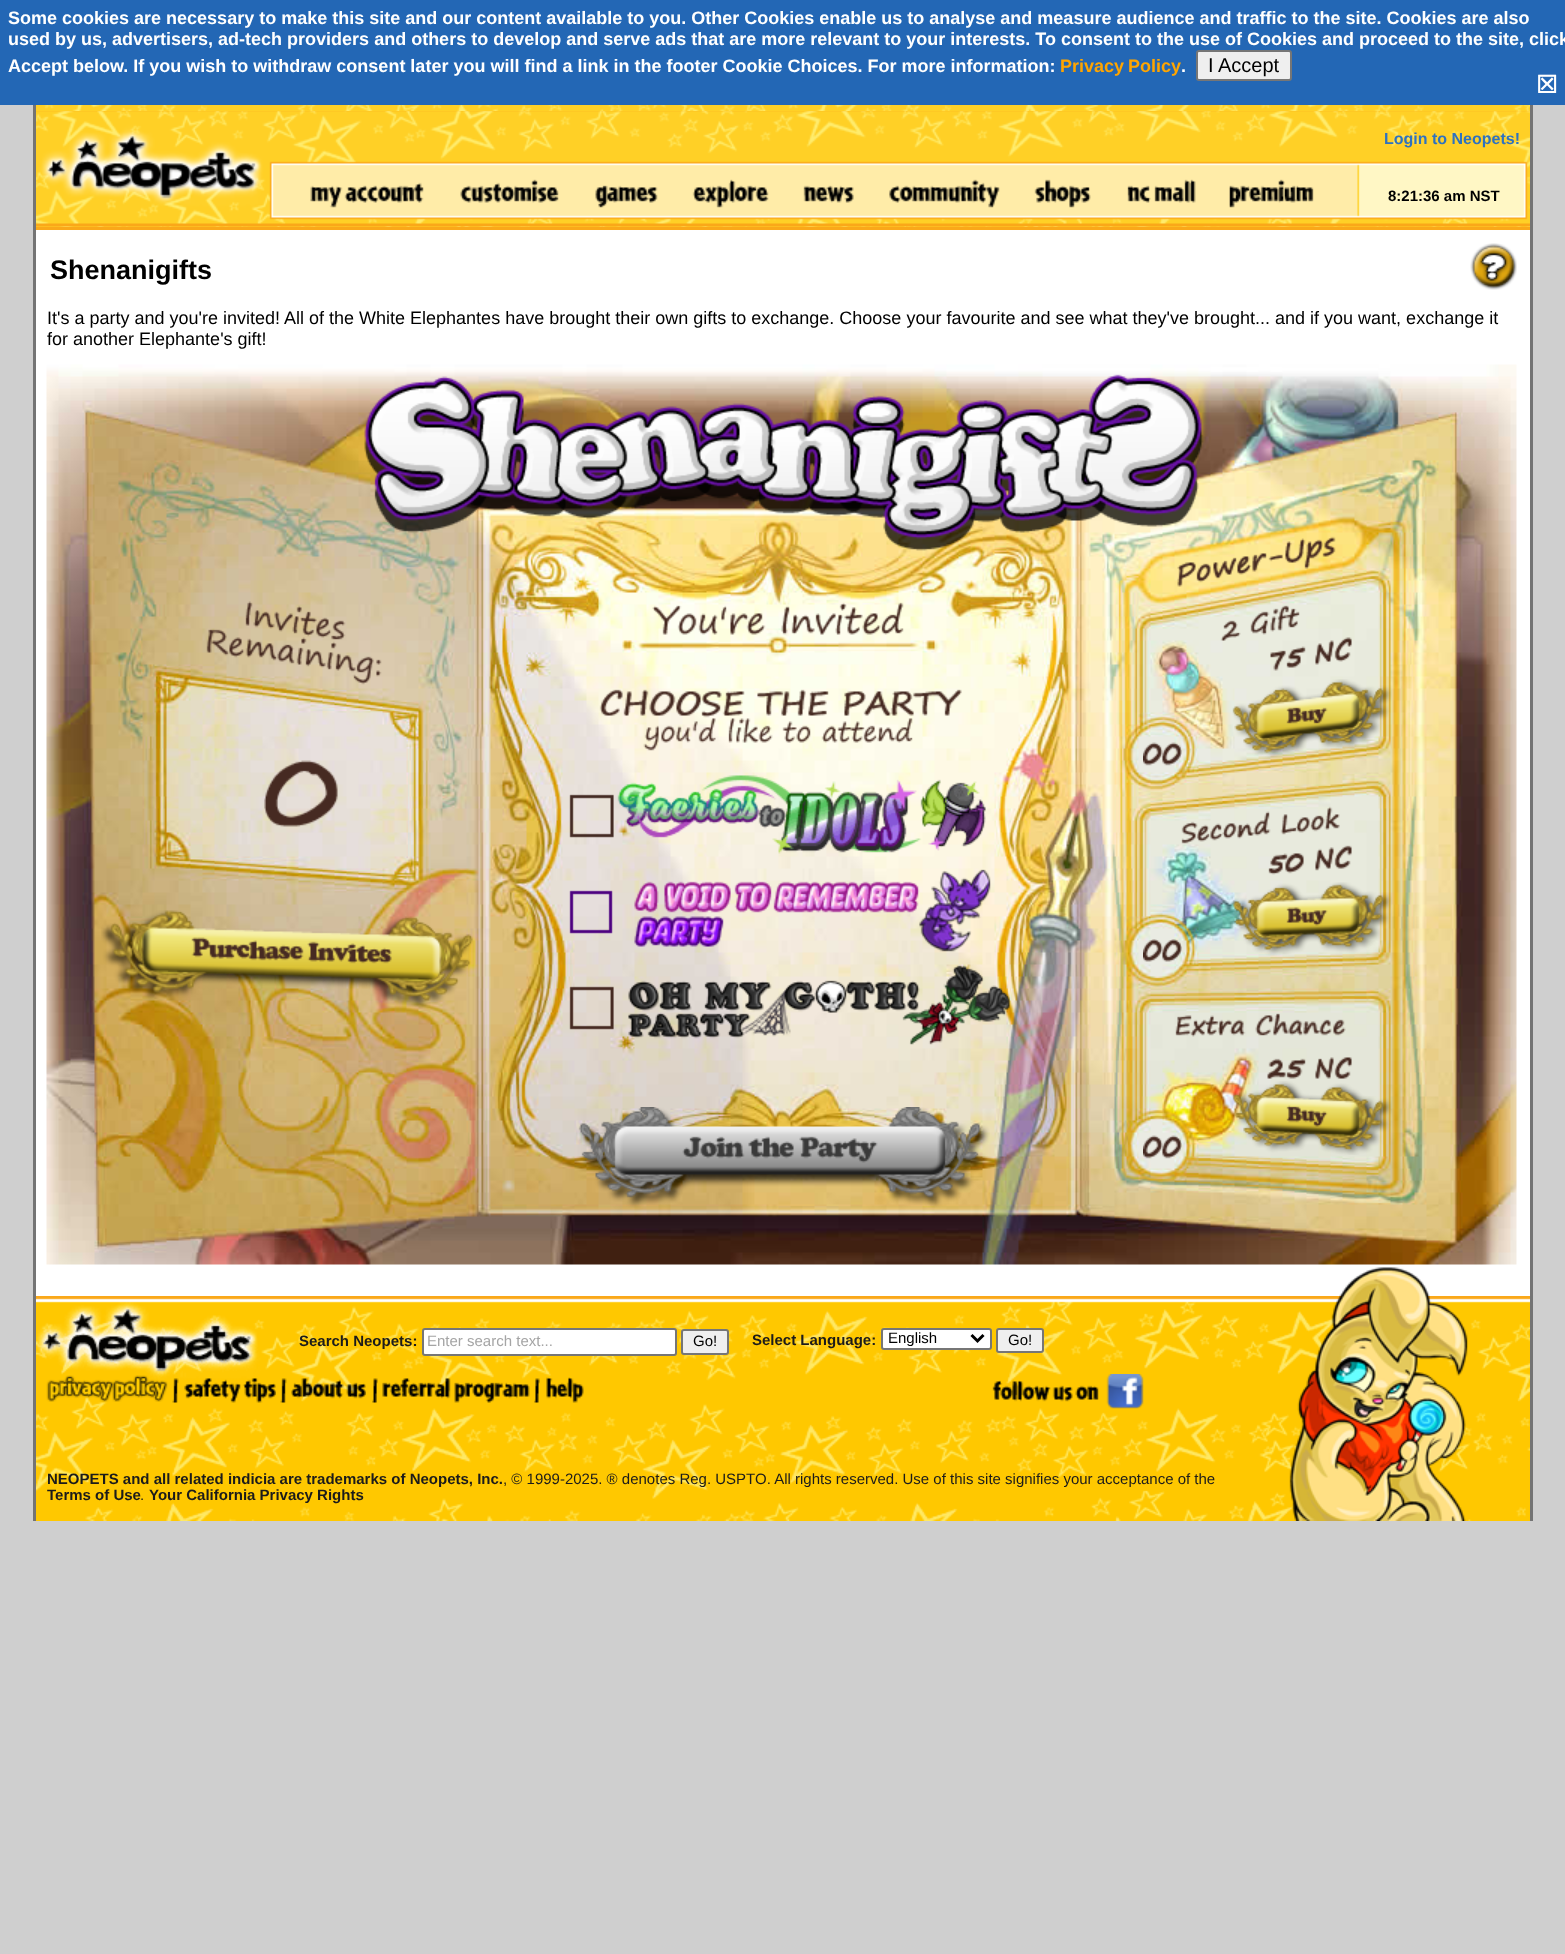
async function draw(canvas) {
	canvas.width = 1565;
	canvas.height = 1954;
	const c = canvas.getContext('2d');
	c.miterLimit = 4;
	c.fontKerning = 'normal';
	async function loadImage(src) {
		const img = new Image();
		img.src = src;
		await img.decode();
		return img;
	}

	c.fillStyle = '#cfcfcf';
	c.fillRect(0, 0, 1565, 1954);
	c.fillStyle = '#2367b5';
	c.fillRect(0, 0, 1565, 105);
	c.font = 'bold 18px Liberation Sans';
	c.fillStyle = '#fff';
	for (const [text, x, y] of [
		['Some cookies are necessary to make this site and our content available to you. Other Cookies enable us to analyse and measure audience and traffic to the site. Cookies are also', 8, 24],
		['used by us, advertisers, ad-tech providers and others to develop and serve ads that are more relevant to your interests. To consent to the use of Cookies and proceed to the site, click', 8, 45],
		['Accept below. If you wish to withdraw consent later you will find a link in the footer Cookie Choices. For more information:', 8, 72],
	]) {
		c.fillText(text, x, y);
	}
	c.wordSpacing = '-1px';
	c.fillStyle = '#ffa500';
	c.fillText('Privacy Policy', 1060, 72);
	c.wordSpacing = '0px';
	c.fillStyle = '#fff';
	c.fillText('.', 1181, 72);
	c.fillStyle = '#efefef';
	c.beginPath();
	c.roundRect(1197, 51, 94, 29, 2);
	c.fill();
	c.strokeStyle = '#767676';
	c.lineWidth = 2;
	c.stroke();
	c.font = '20px Liberation Sans';
	c.fillStyle = '#000';
	c.fillText('I Accept', 1208, 72);
	c.font = 'bold 24px DejaVu Sans';
	c.fillStyle = '#fff';
	c.fillText('☒', 1536, 93);
	for (const [x, y, w, h, color] of [
		[36, 230, 1494, 1066, '#fff'],
		[1530, 105, 3, 1416, '#747474'],
		[33, 105, 3, 1416, '#747474'],
	]) {
		c.fillStyle = color;
		c.fillRect(x, y, w, h);
	}
	c.drawImage(await loadImage('img1.png'), 36, 105, 1494, 6);
	c.drawImage(await loadImage('img2.png'), 36, 111, 1494, 116);
	c.fillStyle = '#faa819';
	c.fillRect(36, 227, 1494, 3);
	c.font = 'bold 16px Liberation Sans';
	c.fillStyle = '#2e72c0';
	c.fillText('Login to Neopets!', 1384, 144);
	c.drawImage(await loadImage('img3.png'), 310, 182, 114, 26);
	c.drawImage(await loadImage('img4.png'), 460, 179, 99, 24);
	c.drawImage(await loadImage('img5.png'), 595, 185, 63, 23);
	c.drawImage(await loadImage('img6.png'), 692, 179, 77, 29);
	c.drawImage(await loadImage('img7.png'), 803, 185, 51, 18);
	c.drawImage(await loadImage('img8.png'), 889, 179, 111, 29);
	c.drawImage(await loadImage('img9.png'), 1034, 179, 57, 29);
	c.drawImage(await loadImage('img10.png'), 1127, 179, 69, 24);
	c.drawImage(await loadImage('img11.png'), 1229, 179, 85, 29);
	c.font = 'bold 15px Liberation Sans';
	c.fillStyle = '#000';
	c.fillText('8:21:36 am NST', 1388, 201);
	c.font = 'bold 27px Liberation Sans';
	c.fillText('Shenanigifts', 50, 279);
	c.drawImage(await loadImage('img12.png'), 1470, 243, 47, 47);
	c.font = '18px Liberation Sans';
	c.fillText('It\'s a party and you\'re invited! All of the White Elephantes have brought their own gifts to exchange. Choose your favourite and see what they\'ve brought... and if you want, exchange it', 47, 324);
	c.fillText('for another Elephante\'s gift!', 47, 345);
	c.drawImage(await loadImage('img13.png'), 46, 364, 1471, 901);
	c.drawImage(await loadImage('img35.png'), 206, 536, 1140, 501);
	c.drawImage(await loadImage('img14.png'), 364, 374, 840, 177);
	c.drawImage(await loadImage('img15.png'), 1143, 742, 20, 24);
	c.drawImage(await loadImage('img16.png'), 1162, 742, 20, 24);
	c.drawImage(await loadImage('img17.png'), 1232, 679, 160, 79);
	c.drawImage(await loadImage('img18.png'), 1286, 707, 42, 17);
	c.drawImage(await loadImage('img19.png'), 264, 760, 74, 67);
	c.drawImage(await loadImage('img20.png'), 569, 775, 417, 79);
	c.drawImage(await loadImage('img21.png'), 569, 869, 422, 83);
	c.drawImage(await loadImage('img22.png'), 569, 965, 441, 80);
	c.drawImage(await loadImage('img23.png'), 1232, 882, 160, 74);
	c.drawImage(await loadImage('img24.png'), 1286, 907, 42, 19);
	c.drawImage(await loadImage('img25.png'), 101, 910, 372, 99);
	c.drawImage(await loadImage('img26.png'), 191, 937, 201, 27);
	c.drawImage(await loadImage('img27.png'), 1143, 939, 20, 23);
	c.drawImage(await loadImage('img28.png'), 1162, 939, 20, 23);
	c.drawImage(await loadImage('img29.png'), 578, 1107, 412, 101);
	c.drawImage(await loadImage('img30.png'), 682, 1136, 196, 27);
	c.drawImage(await loadImage('img31.png'), 1143, 1135, 20, 24);
	c.drawImage(await loadImage('img32.png'), 1162, 1135, 20, 24);
	c.drawImage(await loadImage('img33.png'), 1232, 1081, 160, 74);
	c.drawImage(await loadImage('img34.png'), 1286, 1105, 42, 22);
	c.drawImage(await loadImage('img36.png'), 1270, 637, 82, 34);
	c.drawImage(await loadImage('img37.png'), 1268, 845, 84, 30);
	c.drawImage(await loadImage('img38.png'), 1267, 1057, 85, 22);
	c.drawImage(await loadImage('img39.png'), 36, 1296, 1494, 225);
	c.font = 'bold 15px Liberation Sans';
	c.fillStyle = '#1b1b1b';
	c.fillText('Search Neopets:', 299, 1346);
	c.fillStyle = '#fff';
	c.beginPath();
	c.roundRect(423, 1329, 253, 26, 2);
	c.fill();
	c.stroke();
	c.font = '15px Liberation Sans';
	c.fillStyle = '#a5a5a5';
	c.fillText('Enter search text...', 427, 1346);
	c.fillStyle = '#efefef';
	c.beginPath();
	c.roundRect(682, 1330, 46, 24, 2);
	c.fill();
	c.stroke();
	c.fillStyle = '#000';
	c.fillText('Go!', 693, 1346);
	c.font = 'bold 15px Liberation Sans';
	c.fillStyle = '#1b1b1b';
	c.fillText('Select Language:', 752, 1345);
	c.fillStyle = '#fff';
	c.beginPath();
	c.roundRect(882, 1329, 109, 20, 2);
	c.fill();
	c.stroke();
	c.beginPath();
	c.moveTo(971.5, 1335);
	c.lineTo(977.5, 1341);
	c.lineTo(983.5, 1335);
	c.strokeStyle = '#000';
	c.lineWidth = 3;
	c.stroke();
	c.font = '15px Liberation Sans';
	c.fillStyle = '#000';
	c.fillText('English', 888, 1343);
	c.fillStyle = '#efefef';
	c.beginPath();
	c.roundRect(997, 1329, 46, 23, 2);
	c.fill();
	c.strokeStyle = '#767676';
	c.lineWidth = 2;
	c.stroke();
	c.fillStyle = '#000';
	c.fillText('Go!', 1008, 1345);
	c.drawImage(await loadImage('img40.png'), 46, 1375, 122, 27);
	c.drawImage(await loadImage('img41.png'), 172, 1378, 7, 25);
	c.drawImage(await loadImage('img42.png'), 184, 1378, 92, 25);
	c.drawImage(await loadImage('img43.png'), 280, 1378, 7, 25);
	c.drawImage(await loadImage('img44.png'), 291, 1378, 75, 21);
	c.drawImage(await loadImage('img45.png'), 372, 1378, 6, 25);
	c.drawImage(await loadImage('img46.png'), 382, 1377, 148, 26);
	c.drawImage(await loadImage('img47.png'), 534, 1378, 6, 25);
	c.drawImage(await loadImage('img48.png'), 546, 1377, 38, 26);
	c.drawImage(await loadImage('img49.png'), 992, 1380, 107, 22);
	c.drawImage(await loadImage('img50.png'), 1106, 1374, 38, 35);
	c.font = 'bold 15px Liberation Sans';
	c.fillStyle = '#1b1b1b';
	c.fillText('NEOPETS and all related indicia are trademarks of Neopets, Inc.', 47, 1484);
	c.font = '15px Liberation Sans';
	c.fillText(', © 1999-2025. ® denotes Reg. USPTO. All rights reserved. Use of this site signifies your acceptance of the', 503, 1484);
	c.font = 'bold 15px Liberation Sans';
	c.fillText('Terms of Use', 47, 1500);
	c.font = '15px Liberation Sans';
	c.fillText('.', 140, 1500);
	c.font = 'bold 15px Liberation Sans';
	c.fillText('Your California Privacy Rights', 149, 1500);
	c.drawImage(await loadImage('img51.png'), 1289, 1267, 179, 254);
}

draw(document.querySelector('canvas'));
